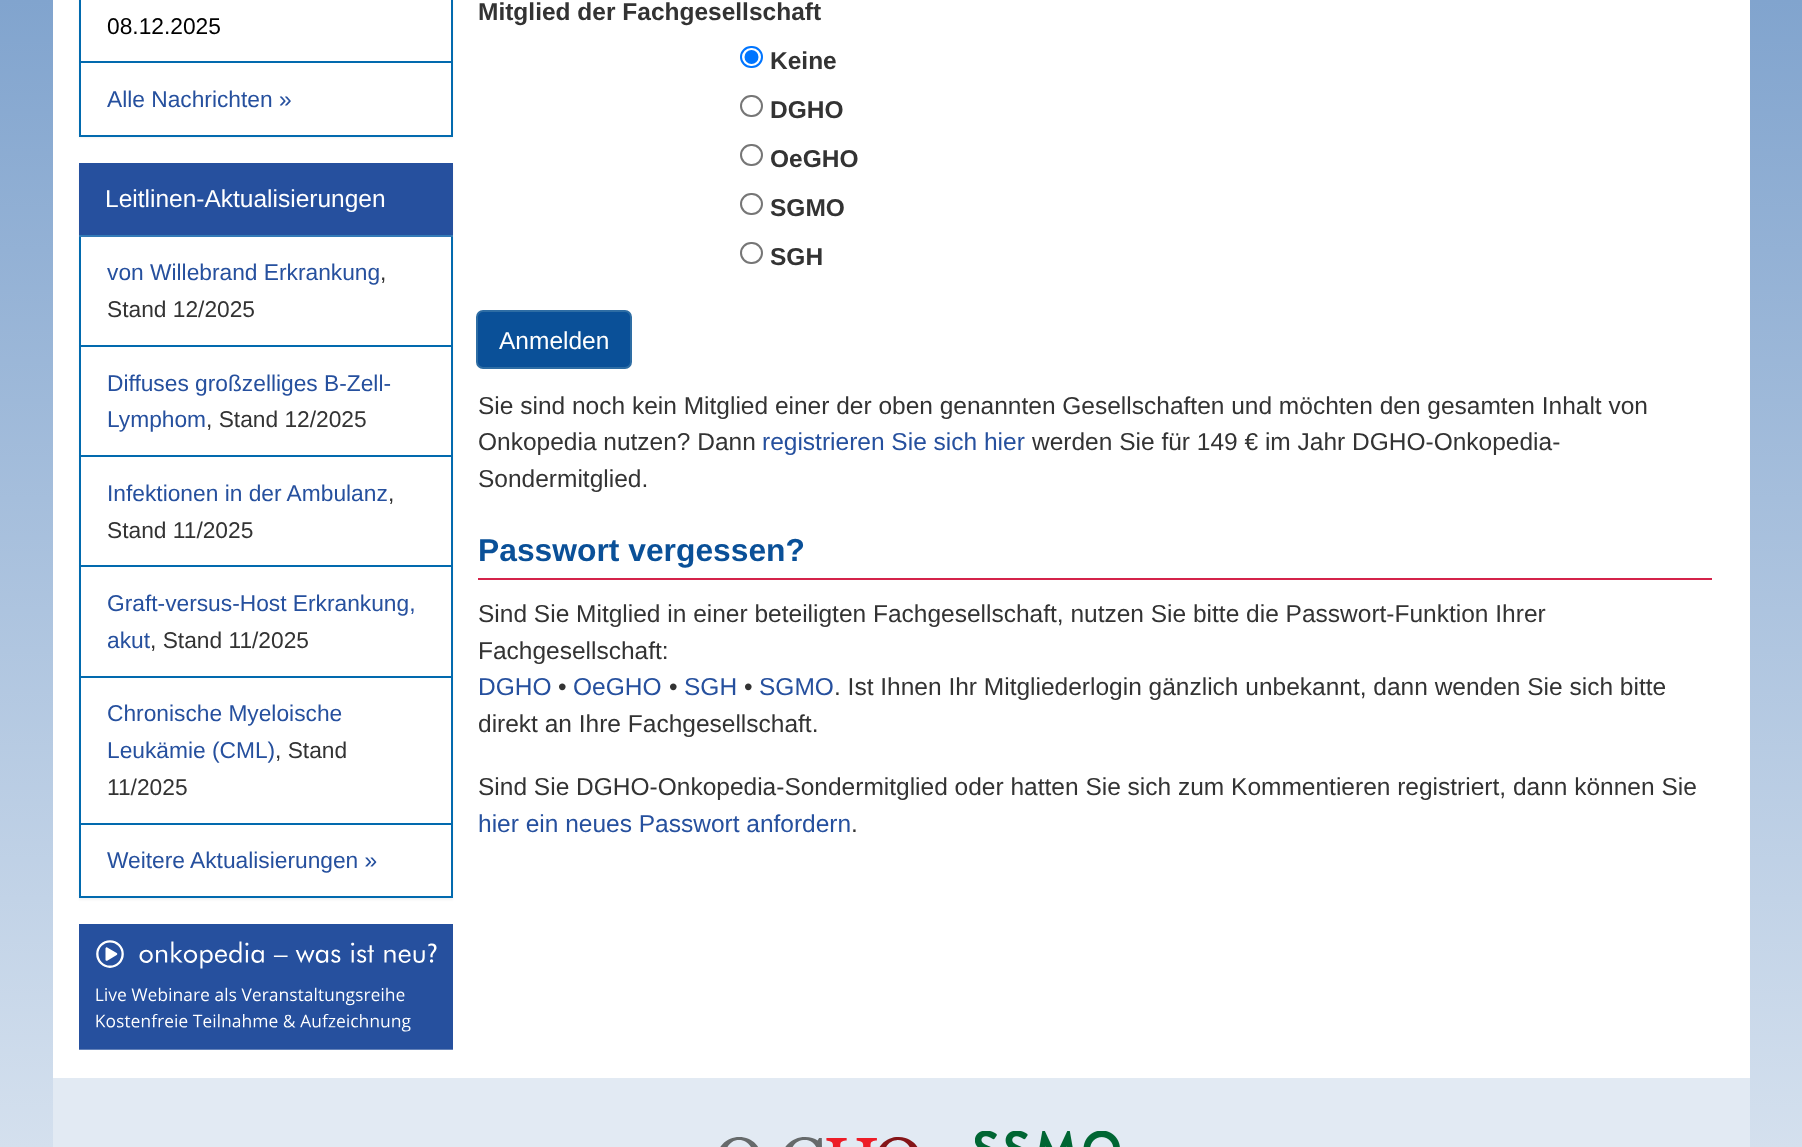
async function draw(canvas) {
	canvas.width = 1802;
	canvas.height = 1147;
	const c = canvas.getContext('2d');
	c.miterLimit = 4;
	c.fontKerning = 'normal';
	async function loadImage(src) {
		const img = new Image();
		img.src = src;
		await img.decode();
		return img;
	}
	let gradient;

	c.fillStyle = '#fff';
	c.fillRect(0, 0, 1802, 1147);
	gradient = c.createLinearGradient(901, 0, 901, 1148);
	gradient.addColorStop(0, '#81a4ce');
	gradient.addColorStop(1, '#d4e0ee');
	c.fillStyle = gradient;
	c.fillRect(0, 0, 1802, 1147);
	c.fillStyle = '#fff';
	c.fillRect(53, 0, 1697, 1078);
	c.fillStyle = '#0000000d';
	c.filter = 'blur(1px)';
	c.beginPath();
	c.rect(79, -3, 374, 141);
	c.fill();
	c.filter = 'none';
	c.fillStyle = '#fff';
	c.beginPath();
	c.rect(80, -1, 372, 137);
	c.fill();
	c.strokeStyle = '#026aae';
	c.lineWidth = 2;
	c.stroke();
	c.fillStyle = '#026aae';
	c.fillRect(81, 61, 371, 2);
	c.font = '22.75px Liberation Sans';
	c.fillStyle = '#000';
	c.fillText('08.12.2025', 107, 34);
	c.fillStyle = '#26509e';
	c.fillText('Alle Nachrichten »', 107, 107);
	c.fillStyle = '#0000000d';
	c.filter = 'blur(1px)';
	c.beginPath();
	c.rect(79, 165, 374, 735);
	c.fill();
	c.filter = 'none';
	c.fillStyle = '#fff';
	c.fillRect(81, 237, 370, 659);
	c.strokeRect(80, 164, 372, 733);
	c.fillStyle = '#26509e';
	c.fillRect(79, 163, 374, 72);
	c.fillStyle = '#337ab7';
	c.fillRect(79, 235, 374, 2);
	c.font = '24.5px Liberation Sans';
	c.fillStyle = '#fff';
	c.fillText('Leitlinen-Aktualisierungen', 105, 207);
	c.font = '22.75px Liberation Sans';
	c.fillStyle = '#26509e';
	c.fillText('von Willebrand Erkrankung', 107, 280);
	c.fillStyle = '#333';
	c.fillText(',', 380, 280);
	c.fillText('Stand 12/2025', 107, 317);
	c.fillStyle = '#026aae';
	c.fillRect(81, 345, 371, 2);
	c.fillStyle = '#26509e';
	c.fillText('Diffuses großzelliges B-Zell-', 107, 391);
	c.fillText('Lymphom', 107, 427);
	c.fillStyle = '#333';
	c.fillText(', Stand 12/2025', 206, 427);
	c.fillStyle = '#026aae';
	c.fillRect(81, 455, 371, 2);
	c.fillStyle = '#26509e';
	c.fillText('Infektionen in der Ambulanz', 107, 501);
	c.fillStyle = '#333';
	c.fillText(',', 388, 501);
	c.fillText('Stand 11/2025', 107, 538);
	c.fillStyle = '#026aae';
	c.fillRect(81, 565, 371, 2);
	c.fillStyle = '#26509e';
	c.fillText('Graft-versus-Host Erkrankung,', 107, 611);
	c.fillText('akut', 107, 648);
	c.fillStyle = '#333';
	c.fillText(', Stand 11/2025', 150, 648);
	c.fillStyle = '#026aae';
	c.fillRect(81, 676, 371, 2);
	c.fillRect(81, 823, 371, 2);
	c.fillStyle = '#26509e';
	c.fillText('Chronische Myeloische', 107, 721);
	c.fillText('Leukämie (CML)', 107, 758);
	c.fillStyle = '#333';
	c.fillText(', Stand', 275, 758);
	c.fillText('11/2025', 107, 795);
	c.fillStyle = '#26509e';
	c.fillText('Weitere Aktualisierungen »', 107, 868);
	c.drawImage(await loadImage('img1.png'), 79, 924, 374, 126);
	c.font = 'bold 24.5px Liberation Sans';
	c.fillStyle = '#333';
	c.fillText('Mitglied der Fachgesellschaft', 478, 20);
	c.beginPath();
	c.roundRect(741, 47, 21, 20, 10);
	c.strokeStyle = '#0075ff';
	c.stroke();
	c.fillStyle = '#0075ff';
	c.beginPath();
	c.arc(751.5, 57, 7, 0, 2 * Math.PI);
	c.fill();
	c.fillStyle = '#333';
	c.fillText('Keine', 770, 69);
	c.beginPath();
	c.roundRect(741, 96, 21, 20, 10);
	c.strokeStyle = '#767676';
	c.stroke();
	c.fillText('DGHO', 770, 118);
	c.beginPath();
	c.roundRect(741, 145, 21, 20, 10);
	c.stroke();
	c.fillText('OeGHO', 770, 167);
	c.beginPath();
	c.roundRect(741, 194, 21, 20, 10);
	c.stroke();
	c.fillText('SGMO', 770, 216);
	c.beginPath();
	c.roundRect(741, 243, 21, 20, 10);
	c.stroke();
	c.fillText('SGH', 770, 265);
	c.fillStyle = '#0a5098';
	c.beginPath();
	c.roundRect(477, 311, 154, 57, 6);
	c.fill();
	c.strokeStyle = '#2e6da4';
	c.stroke();
	c.font = '24.5px Liberation Sans';
	c.fillStyle = '#fff';
	c.fillText('Anmelden', 499, 349);
	c.fillStyle = '#333';
	c.fillText('Sie sind noch kein Mitglied einer der oben genannten Gesellschaften und möchten den gesamten Inhalt von', 478, 414);
	c.fillText('Onkopedia nutzen? Dann', 478, 450);
	c.fillStyle = '#26509e';
	c.fillText('registrieren Sie sich hier', 762, 450);
	c.fillStyle = '#333';
	c.fillText('werden Sie für 149 € im Jahr DGHO-Onkopedia-', 1032, 450);
	c.fillText('Sondermitglied.', 478, 487);
	c.fillStyle = '#d4234a';
	c.fillRect(478, 578, 1234, 2);
	c.font = 'bold 31.8px Liberation Sans';
	c.fillStyle = '#0a5098';
	c.fillText('Passwort vergessen?', 478, 561);
	c.font = '24.5px Liberation Sans';
	c.fillStyle = '#333';
	c.fillText('Sind Sie Mitglied in einer beteiligten Fachgesellschaft, nutzen Sie bitte die Passwort-Funktion Ihrer', 478, 622);
	c.fillText('Fachgesellschaft:', 478, 659);
	c.fillStyle = '#26509e';
	c.fillText('DGHO', 478, 695);
	c.fillStyle = '#333';
	c.fillText('•', 558, 695);
	c.fillStyle = '#26509e';
	c.fillText('OeGHO', 573, 695);
	c.fillStyle = '#333';
	c.fillText('•', 669, 695);
	c.fillStyle = '#26509e';
	c.fillText('SGH', 684, 695);
	c.fillStyle = '#333';
	c.fillText('•', 744, 695);
	c.fillStyle = '#26509e';
	c.fillText('SGMO', 759, 695);
	c.fillStyle = '#333';
	for (const [text, x, y] of [
		['. Ist Ihnen Ihr Mitgliederlogin gänzlich unbekannt, dann wenden Sie sich bitte', 834, 695],
		['direkt an Ihre Fachgesellschaft.', 478, 732],
		['Sind Sie DGHO-Onkopedia-Sondermitglied oder hatten Sie sich zum Kommentieren registriert, dann können Sie', 478, 795],
	]) {
		c.fillText(text, x, y);
	}
	c.fillStyle = '#26509e';
	c.fillText('hier ein neues Passwort anfordern', 478, 832);
	c.fillStyle = '#333';
	c.fillText('.', 851, 832);
	c.fillStyle = '#e2eaf3';
	c.fillRect(53, 1078, 1697, 69);
	c.drawImage(await loadImage('img2.png'), 720, 1137, 198, 10);
	c.drawImage(await loadImage('img3.png'), 975, 1131, 145, 16);
}

draw(document.querySelector('canvas'));
